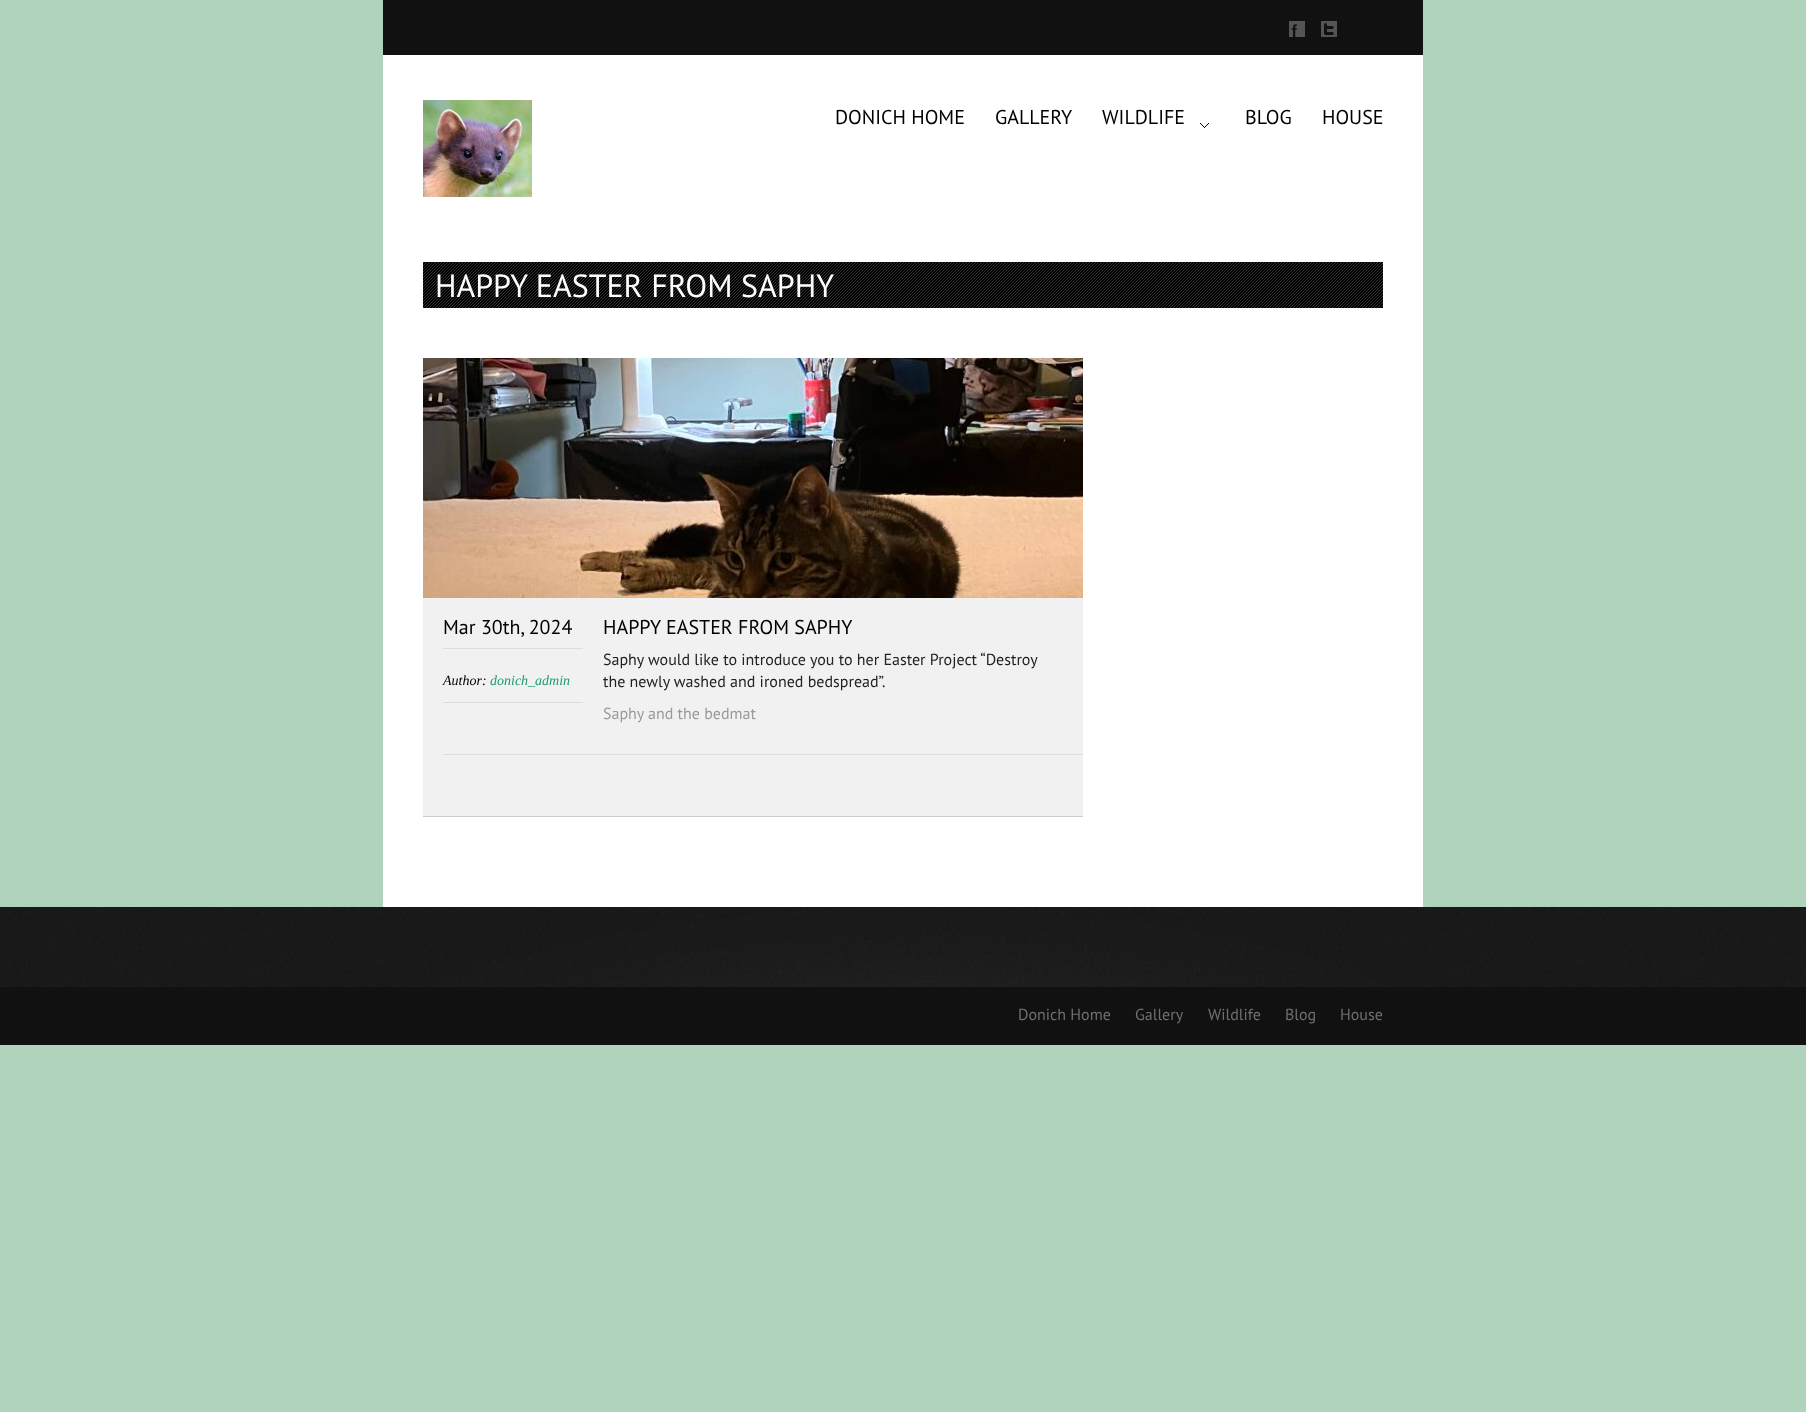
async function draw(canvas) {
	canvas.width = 1806;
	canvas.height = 1412;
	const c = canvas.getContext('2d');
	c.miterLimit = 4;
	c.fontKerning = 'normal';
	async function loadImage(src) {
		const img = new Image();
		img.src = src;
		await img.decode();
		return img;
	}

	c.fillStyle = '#b0d4bb';
	c.fillRect(0, 0, 1806, 1412);
	c.fillStyle = '#111';
	c.fillRect(383, 0, 1040, 55);
	c.drawImage(await loadImage('img1.png'), 1289, 21, 16, 16);
	c.drawImage(await loadImage('img2.png'), 1321, 21, 16, 16);
	c.fillStyle = '#fff';
	c.fillRect(383, 55, 1040, 852);
	c.drawImage(await loadImage('img3.png'), 423, 100, 109, 97);
	c.font = '20px PT Sans';
	c.fillStyle = '#000';
	c.fillText('DONICH HOME', 835, 124);
	c.fillText('GALLERY', 995, 124);
	c.drawImage(await loadImage('img4.png'), 1200, 123, 9, 5);
	for (const [text, x, y] of [
		['WILDLIFE', 1102, 124],
		['BLOG', 1245, 124],
		['HOUSE', 1322, 124],
	]) {
		c.fillText(text, x, y);
	}
	c.fillRect(423, 262, 960, 46);
	c.drawImage(await loadImage('img5.png'), 423, 262, 960, 46);
	c.font = '32px PT Sans';
	c.fillStyle = '#fff';
	c.fillText('HAPPY EASTER FROM SAPHY', 435, 297);
	c.drawImage(await loadImage('img6.png'), 423, 358, 660, 240);
	c.fillStyle = '#f1f1f1';
	c.fillRect(423, 598, 660, 218);
	c.fillStyle = '#ccc';
	c.fillRect(423, 816, 660, 1);
	c.font = '20px PT Sans';
	c.fillStyle = '#000';
	c.fillText('Mar 30th, 2024', 443, 634);
	c.fillStyle = '#ddd';
	c.fillRect(443, 648, 140, 1);
	c.font = 'italic 14px Liberation Serif';
	c.fillStyle = '#000';
	c.fillText('Author:', 443, 685);
	c.fillStyle = '#1f9c70';
	c.fillText('donich_admin', 490, 685);
	c.fillStyle = '#ddd';
	c.fillRect(443, 702, 140, 1);
	c.font = '20px PT Sans';
	c.fillStyle = '#000';
	c.fillText('HAPPY EASTER FROM SAPHY', 603, 634);
	c.font = '16px PT Sans';
	c.fillStyle = '#222';
	c.fillText('Saphy would like to introduce you to her Easter Project “Destroy', 603, 665);
	c.fillText('the newly washed and ironed bedspread”.', 603, 687);
	c.fillStyle = '#999';
	c.fillText('Saphy and the bedmat', 603, 719);
	c.fillStyle = '#ddd';
	c.fillRect(443, 754, 640, 1);
	c.drawImage(await loadImage('img7.png'), 0, 907, 1806, 80);
	c.drawImage(await loadImage('img8.png'), 383, 907, 1040, 80);
	c.fillStyle = '#111';
	c.fillRect(0, 987, 1806, 58);
	c.fillStyle = '#707070';
	for (const [text, x, y] of [
		['Donich Home', 1018, 1020],
		['Gallery', 1135, 1020],
		['Wildlife', 1208, 1020],
		['Blog', 1285, 1020],
		['House', 1340, 1020],
	]) {
		c.fillText(text, x, y);
	}
}

draw(document.querySelector('canvas'));
